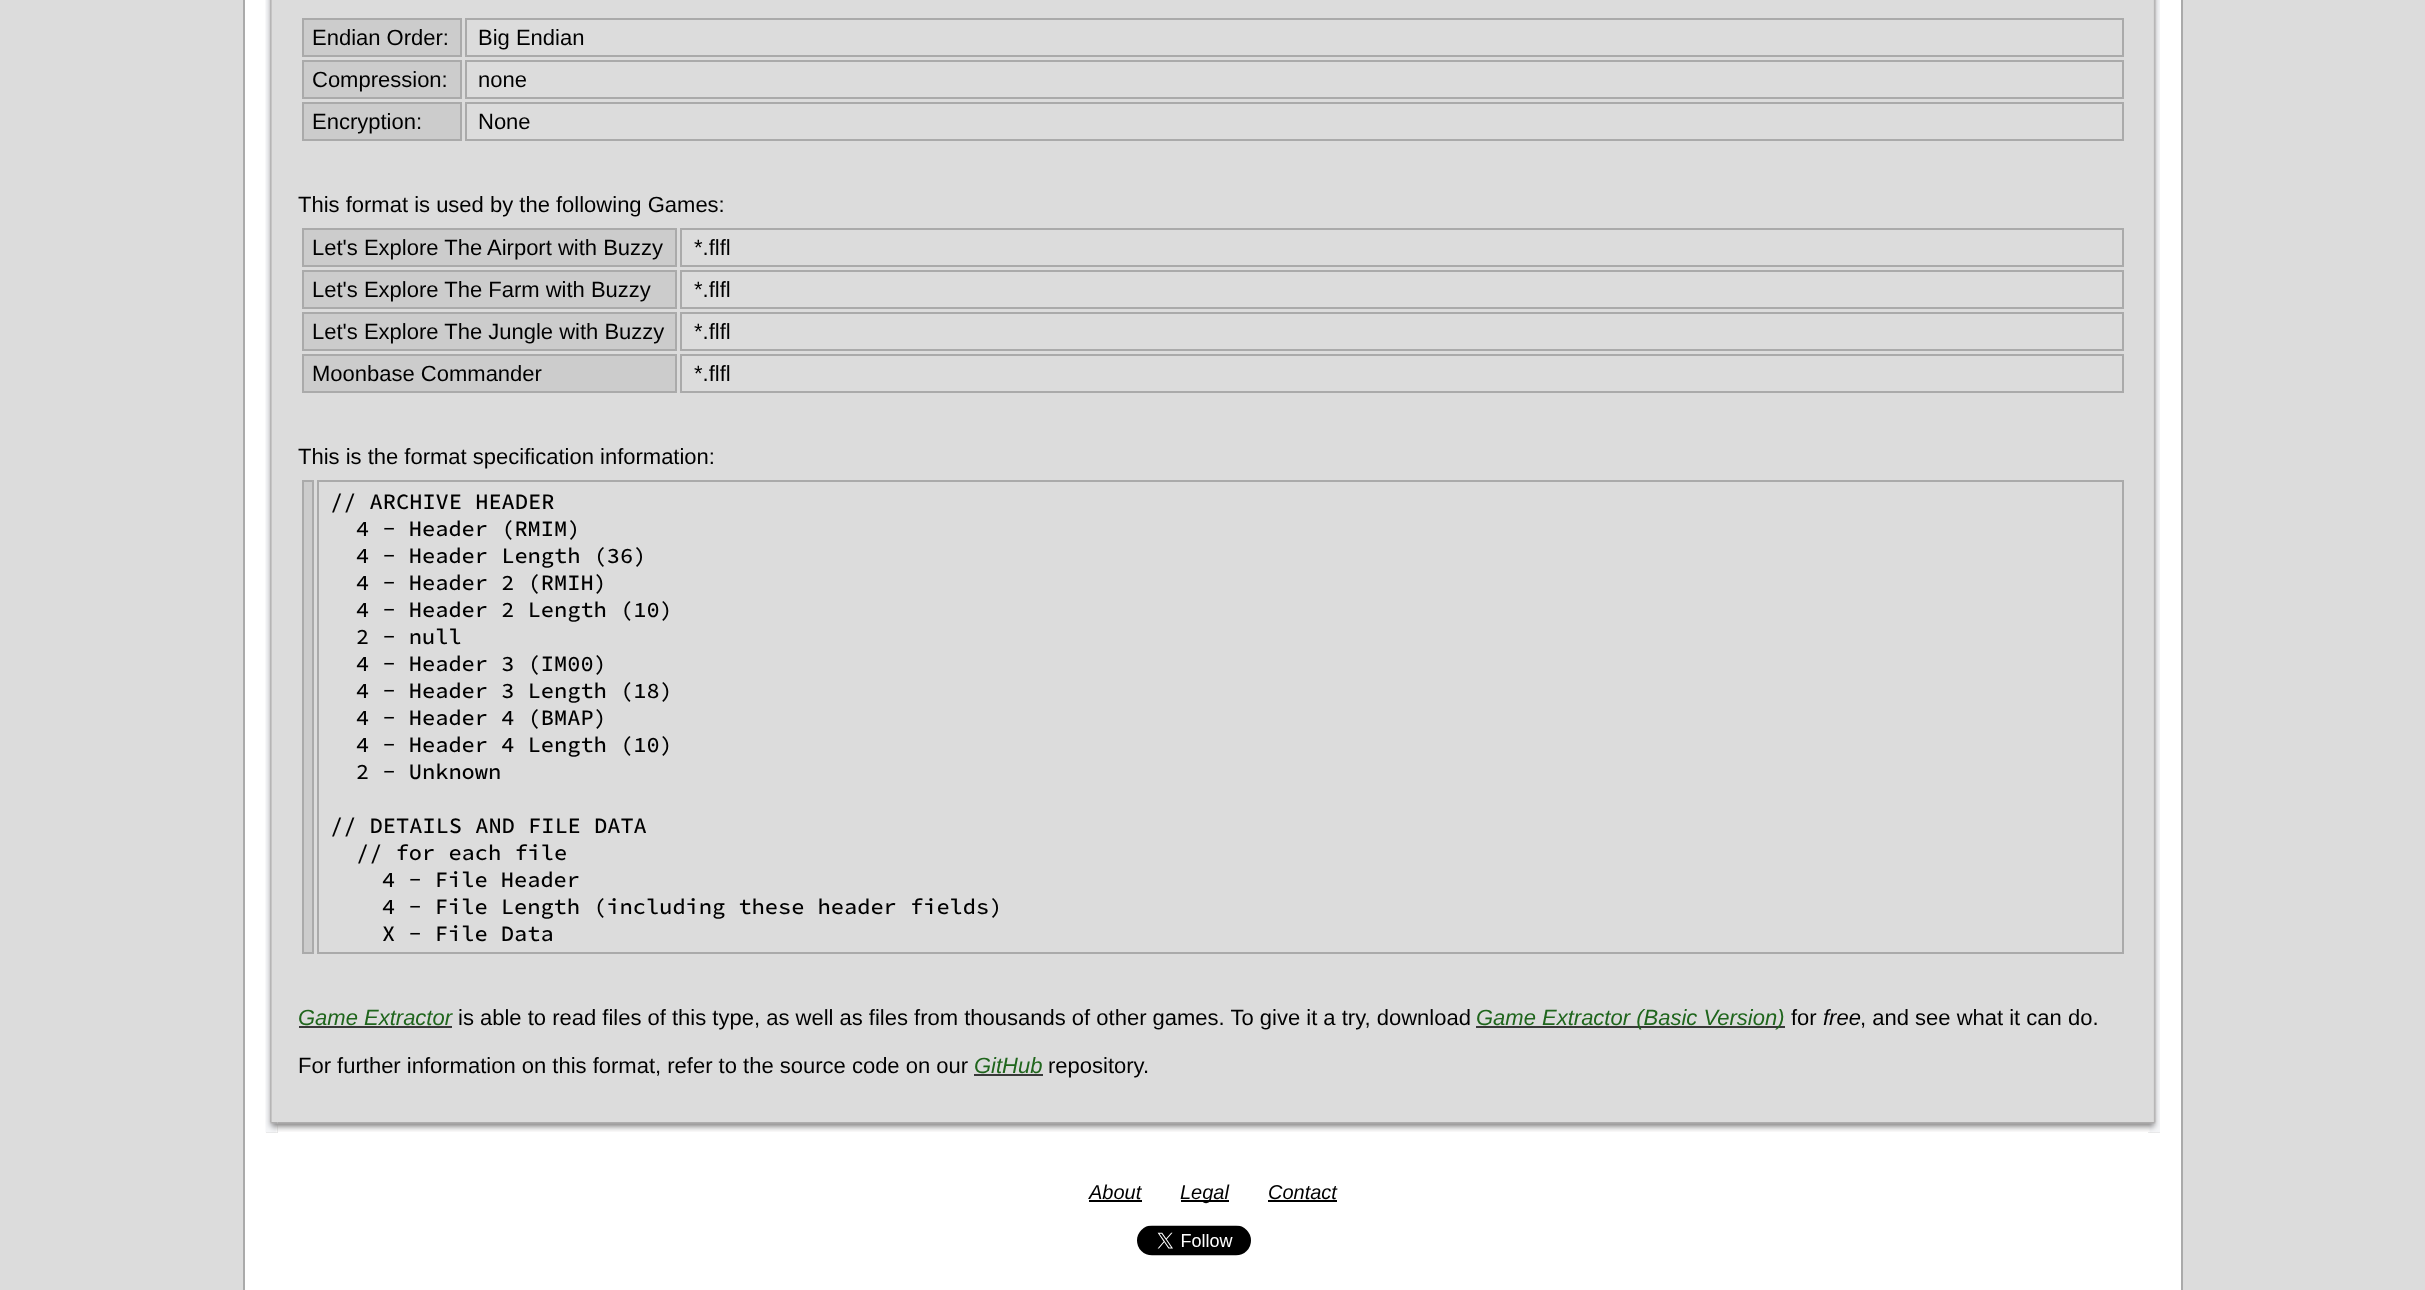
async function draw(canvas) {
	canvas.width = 2425;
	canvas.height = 1290;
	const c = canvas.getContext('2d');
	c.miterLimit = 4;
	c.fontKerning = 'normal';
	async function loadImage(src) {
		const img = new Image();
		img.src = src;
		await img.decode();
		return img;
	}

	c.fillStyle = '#dcdcdc';
	c.fillRect(0, 0, 2425, 1290);
	for (const [x, y, w, h, color] of [
		[245, 0, 1936, 1290, '#fff'],
		[2181, 0, 2, 1290, '#aaa'],
		[243, 0, 2, 1290, '#aaa'],
		[271, 0, 1884, 1122, '#dcdcdc'],
	]) {
		c.fillStyle = color;
		c.fillRect(x, y, w, h);
	}
	c.drawImage(await loadImage('img1.png'), 265, 0, 7, 1122);
	c.drawImage(await loadImage('img2.png'), 2153, 0, 7, 1122);
	c.fillStyle = '#ccc';
	c.beginPath();
	c.rect(303, 19, 158, 37);
	c.fill();
	c.strokeStyle = '#aaa';
	c.lineWidth = 2;
	c.stroke();
	c.font = '22px Liberation Sans';
	c.fillStyle = '#000';
	c.fillText('Endian Order:', 312, 45);
	c.strokeRect(466, 19, 1657, 37);
	c.fillText('Big Endian', 478, 45);
	c.fillStyle = '#ccc';
	c.beginPath();
	c.rect(303, 61, 158, 37);
	c.fill();
	c.stroke();
	c.fillStyle = '#000';
	c.fillText('Compression:', 312, 87);
	c.strokeRect(466, 61, 1657, 37);
	c.fillText('none', 478, 87);
	c.fillStyle = '#ccc';
	c.beginPath();
	c.rect(303, 103, 158, 37);
	c.fill();
	c.stroke();
	c.fillStyle = '#000';
	c.fillText('Encryption:', 312, 129);
	c.strokeRect(466, 103, 1657, 37);
	c.fillText('None', 478, 129);
	c.fillText('This format is used by the following Games:', 298, 212);
	c.fillStyle = '#ccc';
	c.beginPath();
	c.rect(303, 229, 373, 37);
	c.fill();
	c.stroke();
	c.fillStyle = '#000';
	c.fillText('Let\'s Explore The Airport with Buzzy', 312, 255);
	c.strokeRect(681, 229, 1442, 37);
	c.fillText('*.flfl', 694, 255);
	c.fillStyle = '#ccc';
	c.beginPath();
	c.rect(303, 271, 373, 37);
	c.fill();
	c.stroke();
	c.fillStyle = '#000';
	c.fillText('Let\'s Explore The Farm with Buzzy', 312, 297);
	c.strokeRect(681, 271, 1442, 37);
	c.fillText('*.flfl', 694, 297);
	c.fillStyle = '#ccc';
	c.beginPath();
	c.rect(303, 313, 373, 37);
	c.fill();
	c.stroke();
	c.fillStyle = '#000';
	c.fillText('Let\'s Explore The Jungle with Buzzy', 312, 339);
	c.strokeRect(681, 313, 1442, 37);
	c.fillText('*.flfl', 694, 339);
	c.fillStyle = '#ccc';
	c.beginPath();
	c.rect(303, 355, 373, 37);
	c.fill();
	c.stroke();
	c.fillStyle = '#000';
	c.fillText('Moonbase Commander', 312, 381);
	c.strokeRect(681, 355, 1442, 37);
	c.fillText('*.flfl', 694, 381);
	c.fillText('This is the format specification information:', 298, 464);
	c.fillStyle = '#ccc';
	c.beginPath();
	c.rect(303, 481, 10, 472);
	c.fill();
	c.stroke();
	c.strokeRect(318, 481, 1805, 472);
	c.font = '200 22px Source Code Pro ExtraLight';
	c.fillStyle = '#000';
	for (const [text, x, y] of [
		['// ARCHIVE HEADER', 330, 509],
		['4 - Header (RMIM)', 356, 536],
		['4 - Header Length (36)', 356, 563],
		['4 - Header 2 (RMIH)', 356, 590],
		['4 - Header 2 Length (10)', 356, 617],
		['2 - null', 356, 644],
		['4 - Header 3 (IM00)', 356, 671],
		['4 - Header 3 Length (18)', 356, 698],
		['4 - Header 4 (BMAP)', 356, 725],
		['4 - Header 4 Length (10)', 356, 752],
		['2 - Unknown', 356, 779],
		['// DETAILS AND FILE DATA', 330, 833],
		['// for each file', 356, 860],
		['4 - File Header', 382, 887],
		['4 - File Length (including these header fields)', 382, 914],
		['X - File Data', 382, 941],
	]) {
		c.fillText(text, x, y);
	}
	c.font = 'italic 22px Liberation Sans';
	c.fillStyle = '#1f651c';
	c.fillText('Game Extractor', 298, 1025);
	c.fillStyle = '#383838';
	c.fillRect(299, 1026, 153, 2);
	c.font = '22px Liberation Sans';
	c.fillStyle = '#000';
	c.fillText('is able to read files of this type, as well as files from thousands of other games. To give it a try, download', 458, 1025);
	c.fillStyle = '#383838';
	c.fillRect(1476, 1026, 309, 2);
	c.font = 'italic 22px Liberation Sans';
	c.fillStyle = '#1f651c';
	c.fillText('Game Extractor (Basic Version)', 1476, 1025);
	c.font = '22px Liberation Sans';
	c.fillStyle = '#000';
	c.fillText('for', 1791, 1025);
	c.font = 'italic 22px Liberation Sans';
	c.fillText('free', 1823, 1025);
	c.font = '22px Liberation Sans';
	c.fillText(', and see what it can do.', 1860, 1025);
	c.fillText('For further information on this format, refer to the source code on our', 298, 1073);
	c.font = 'italic 22px Liberation Sans';
	c.fillStyle = '#1f651c';
	c.fillText('GitHub', 974, 1073);
	c.fillStyle = '#383838';
	c.fillRect(974, 1074, 69, 2);
	c.font = '22px Liberation Sans';
	c.fillStyle = '#000';
	c.fillText('repository.', 1048, 1073);
	c.fillStyle = '#dcdcdc';
	c.fillRect(266, 1122, 12, 11);
	c.drawImage(await loadImage('img3.png'), 265, 1122, 13, 11);
	c.drawImage(await loadImage('img4.png'), 277, 1122, 1871, 10);
	c.fillRect(2148, 1132, 12, 1);
	c.drawImage(await loadImage('img5.png'), 2148, 1122, 12, 11);
	c.font = 'italic 20px Liberation Sans';
	c.fillStyle = '#000';
	c.fillText('About', 1089, 1199);
	c.fillRect(1089, 1200, 53, 2);
	c.fillRect(1181, 1200, 48, 2);
	c.fillText('Legal', 1180, 1199);
	c.fillText('Contact', 1268, 1199);
	c.fillRect(1268, 1200, 69, 2);
	c.drawImage(await loadImage('img6.png'), 1137, 1225, 114, 31);
}

draw(document.querySelector('canvas'));
